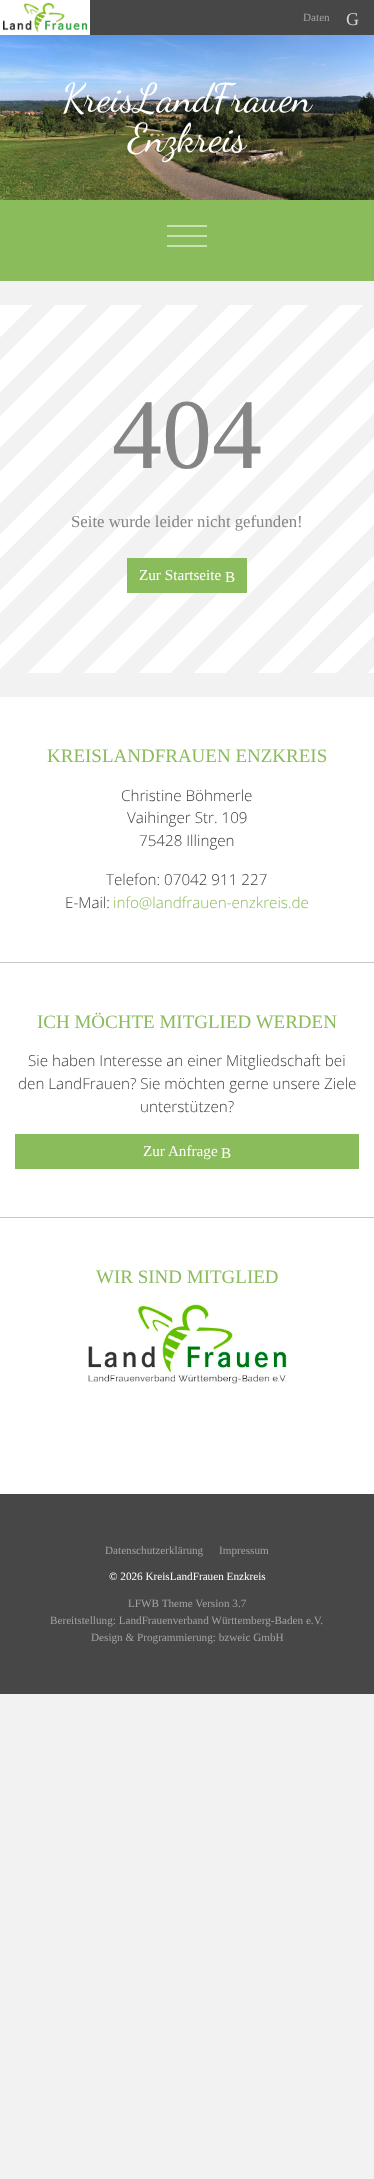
async function draw(canvas) {
	canvas.width = 374;
	canvas.height = 2179;
	const c = canvas.getContext('2d');
	c.miterLimit = 4;
	c.fontKerning = 'normal';
	async function loadImage(src) {
		const img = new Image();
		img.src = src;
		await img.decode();
		return img;
	}
	let gradient;

	c.fillStyle = '#f2f2f2';
	c.fillRect(0, 0, 374, 2179);
	c.fillStyle = '#474747';
	c.fillRect(90, 0, 284, 35);
	c.fillStyle = '#fff';
	c.fillRect(0, 0, 90, 35);
	c.drawImage(await loadImage('img1.png'), 3, 3, 84, 29);
	c.font = '11.2px Liberation Serif';
	c.fillStyle = '#a3a3a3';
	c.fillText('Daten', 303, 21);
	c.font = '18px Liberation Serif';
	c.fillStyle = '#d1d1d1';
	c.fillText('G', 346, 25);
	c.drawImage(await loadImage('img2.png'), 0, 35, 374, 165);
	c.font = '40px Dancing Script';
	c.fillStyle = '#fff';
	c.fillText('KreisLandFrauen', 62, 111);
	c.fillText('Enzkreis', 128, 151);
	for (const [x, y, w, h, color] of [
		[0, 200, 374, 81, '#8bbc5b'],
		[167, 225, 40, 2, '#cae1b2'],
		[167, 235, 40, 2, '#cae1b2'],
		[167, 245, 40, 2, '#cae1b2'],
	]) {
		c.fillStyle = color;
		c.fillRect(x, y, w, h);
	}
	gradient = c.createLinearGradient(1.5, 304, 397, 699);
	gradient.addColorStop(0, '#fff');
	gradient.addColorStop(0.04, '#fff');
	gradient.addColorStop(0.04, '#f2f2f2');
	gradient.addColorStop(0.07, '#f2f2f2');
	gradient.addColorStop(0.07, '#fff');
	gradient.addColorStop(0.11, '#fff');
	gradient.addColorStop(0.11, '#f2f2f2');
	gradient.addColorStop(0.14, '#f2f2f2');
	gradient.addColorStop(0.14, '#fff');
	gradient.addColorStop(0.18, '#fff');
	gradient.addColorStop(0.18, '#f2f2f2');
	gradient.addColorStop(0.21, '#f2f2f2');
	gradient.addColorStop(0.21, '#fff');
	gradient.addColorStop(0.25, '#fff');
	gradient.addColorStop(0.25, '#f2f2f2');
	gradient.addColorStop(0.29, '#f2f2f2');
	gradient.addColorStop(0.29, '#fff');
	gradient.addColorStop(0.32, '#fff');
	gradient.addColorStop(0.32, '#f2f2f2');
	gradient.addColorStop(0.36, '#f2f2f2');
	gradient.addColorStop(0.36, '#fff');
	gradient.addColorStop(0.39, '#fff');
	gradient.addColorStop(0.39, '#f2f2f2');
	gradient.addColorStop(0.43, '#f2f2f2');
	gradient.addColorStop(0.43, '#fff');
	gradient.addColorStop(0.46, '#fff');
	gradient.addColorStop(0.46, '#f2f2f2');
	gradient.addColorStop(0.5, '#f2f2f2');
	gradient.addColorStop(0.5, '#fff');
	gradient.addColorStop(0.54, '#fff');
	gradient.addColorStop(0.54, '#f2f2f2');
	gradient.addColorStop(0.57, '#f2f2f2');
	gradient.addColorStop(0.57, '#fff');
	gradient.addColorStop(0.61, '#fff');
	gradient.addColorStop(0.61, '#f2f2f2');
	gradient.addColorStop(0.64, '#f2f2f2');
	gradient.addColorStop(0.64, '#fff');
	gradient.addColorStop(0.68, '#fff');
	gradient.addColorStop(0.68, '#f2f2f2');
	gradient.addColorStop(0.71, '#f2f2f2');
	gradient.addColorStop(0.71, '#fff');
	gradient.addColorStop(0.75, '#fff');
	gradient.addColorStop(0.75, '#f2f2f2');
	gradient.addColorStop(0.79, '#f2f2f2');
	gradient.addColorStop(0.79, '#fff');
	gradient.addColorStop(0.82, '#fff');
	gradient.addColorStop(0.82, '#f2f2f2');
	gradient.addColorStop(0.86, '#f2f2f2');
	gradient.addColorStop(0.86, '#fff');
	gradient.addColorStop(0.89, '#fff');
	gradient.addColorStop(0.89, '#f2f2f2');
	gradient.addColorStop(0.93, '#f2f2f2');
	gradient.addColorStop(0.93, '#fff');
	gradient.addColorStop(0.96, '#fff');
	gradient.addColorStop(0.96, '#f2f2f2');
	gradient.addColorStop(1, '#f2f2f2');
	c.fillStyle = gradient;
	c.fillRect(0, 305, 374, 368);
	c.font = '100px Liberation Serif';
	c.fillStyle = '#868586';
	c.fillText('404', 112, 468);
	c.font = '16.75px Liberation Serif';
	c.fillText('Seite wurde leider nicht gefunden!', 71, 527);
	c.fillStyle = '#8bbc5b';
	c.fillRect(127, 558, 120, 35);
	c.font = '15.2px Liberation Serif';
	c.fillStyle = '#fff';
	c.fillText('Zur Startseite', 139, 580);
	c.fillText('B', 225, 582);
	c.fillRect(0, 697, 374, 797);
	c.font = '19px Liberation Serif';
	c.fillStyle = '#8bbc5b';
	c.fillText('KREISLANDFRAUEN ENZKREIS', 47, 762);
	c.font = '300 15.2px Open Sans';
	c.fillStyle = '#3c3c3b';
	for (const [text, x, y] of [
		['Christine Böhmerle', 121, 801],
		['Vaihinger Str. 109', 127, 823],
		['75428 Illingen', 139, 846],
		['Telefon: 07042 911 227', 106, 885],
		['E-Mail:', 65, 908],
	]) {
		c.fillText(text, x, y);
	}
	c.fillStyle = '#8bbc5b';
	c.fillText('info@landfrauen-enzkreis.de', 113, 908);
	c.fillStyle = '#c6c6c6';
	c.fillRect(0, 962, 374, 1);
	c.font = '19px Liberation Serif';
	c.fillStyle = '#8bbc5b';
	c.fillText('ICH MÖCHTE MITGLIED WERDEN', 37, 1028);
	c.font = '300 15.2px Open Sans';
	c.fillStyle = '#3c3c3b';
	for (const [text, x, y] of [
		['Sie haben Interesse an einer Mitgliedschaft bei', 28, 1066],
		['den LandFrauen? Sie möchten gerne unsere Ziele', 18, 1089],
		['unterstützen?', 140, 1112],
	]) {
		c.fillText(text, x, y);
	}
	c.fillStyle = '#8bbc5b';
	c.fillRect(15, 1134, 344, 35);
	c.font = '15.2px Liberation Serif';
	c.fillStyle = '#fff';
	c.fillText('Zur Anfrage', 143, 1156);
	c.fillText('B', 221, 1158);
	c.fillStyle = '#c6c6c6';
	c.fillRect(0, 1217, 374, 1);
	c.font = '19px Liberation Serif';
	c.fillStyle = '#8bbc5b';
	c.fillText('WIR SIND MITGLIED', 96, 1283);
	c.drawImage(await loadImage('img3.png'), 88, 1304, 199, 80);
	c.fillStyle = '#474747';
	c.fillRect(0, 1494, 374, 200);
	c.font = '11.2px Liberation Serif';
	c.fillStyle = '#a3a3a3';
	c.fillText('Datenschutzerklärung', 105, 1554);
	c.fillText('Impressum', 219, 1554);
	c.fillStyle = '#fff';
	c.fillText('© 2026 KreisLandFrauen Enzkreis', 109, 1580);
	c.fillStyle = '#a3a3a3';
	for (const [text, x, y] of [
		['LFWB Theme Version 3.7', 128, 1607],
		['Bereitstellung: LandFrauenverband Württemberg-Baden e.V.', 50, 1624],
		['Design & Programmierung: bzweic GmbH', 91, 1641],
	]) {
		c.fillText(text, x, y);
	}
}

draw(document.querySelector('canvas'));
